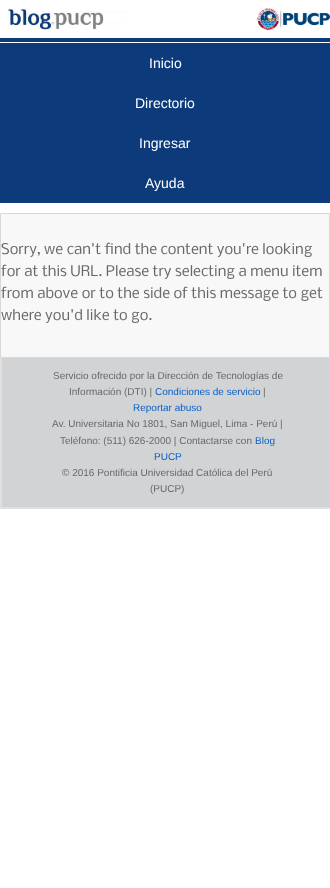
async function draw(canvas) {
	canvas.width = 330;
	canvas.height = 888;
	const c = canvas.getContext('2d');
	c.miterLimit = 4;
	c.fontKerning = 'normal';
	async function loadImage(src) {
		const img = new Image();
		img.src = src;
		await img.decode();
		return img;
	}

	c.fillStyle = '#fff';
	c.fillRect(0, 0, 330, 888);
	c.drawImage(await loadImage('img1.png'), 0, 0, 330, 38);
	c.fillStyle = '#0c3a7b';
	c.fillRect(0, 38, 330, 4);
	c.fillRect(0, 43, 330, 160);
	c.font = '14px Liberation Sans';
	c.fillStyle = '#fff';
	for (const [text, x, y] of [
		['Inicio', 149, 68],
		['Directorio', 135, 108],
		['Ingresar', 139, 148],
		['Ayuda', 145, 188],
	]) {
		c.fillText(text, x, y);
	}
	c.fillStyle = '#f8f8f8';
	c.beginPath();
	c.rect(0.5, 213.5, 329, 144);
	c.fill();
	c.strokeStyle = '#d8d8d8';
	c.stroke();
	c.font = '14px Nobile';
	c.fillStyle = '#686868';
	for (const [text, x, y] of [
		['Sorry, we can\'t find the content you\'re looking', 1, 254],
		['for at this URL. Please try selecting a menu item', 1, 276],
		['from above or to the side of this message to get', 1, 298],
		['where you\'d like to go.', 1, 320],
	]) {
		c.fillText(text, x, y);
	}
	for (const [x, y, w, h, color] of [
		[2, 358, 328, 149, '#d1d3d4'],
		[0, 507, 330, 2, '#e0e0e0'],
		[0, 358, 2, 151, '#e0e0e0'],
	]) {
		c.fillStyle = color;
		c.fillRect(x, y, w, h);
	}
	c.font = '10px Liberation Sans';
	c.fillStyle = '#686868';
	c.fillText('Servicio ofrecido por la Dirección de Tecnologías de', 53, 379);
	c.fillText('Información (DTI) |', 69, 395);
	c.fillStyle = '#0c60c6';
	c.fillText('Condiciones de servicio', 155, 395);
	c.fillStyle = '#686868';
	c.fillText('|', 263, 395);
	c.fillStyle = '#0c60c6';
	c.fillText('Reportar abuso', 133, 411);
	c.fillStyle = '#686868';
	c.fillText('Av. Universitaria No 1801, San Miguel, Lima - Perú |', 52, 427);
	c.fillText('Teléfono: (511) 626-2000 | Contactarse con', 60, 444);
	c.fillStyle = '#0c60c6';
	c.fillText('Blog', 255, 444);
	c.fillText('PUCP', 154, 460);
	c.fillStyle = '#686868';
	c.fillText('© 2016 Pontificia Universidad Católica del Perú', 62, 476);
	c.fillText('(PUCP)', 150, 492);
}

draw(document.querySelector('canvas'));
